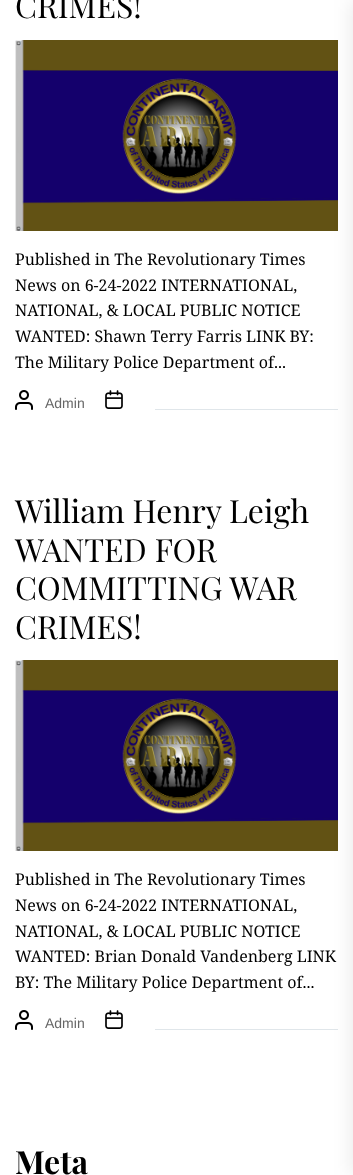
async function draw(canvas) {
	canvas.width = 353;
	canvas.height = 1175;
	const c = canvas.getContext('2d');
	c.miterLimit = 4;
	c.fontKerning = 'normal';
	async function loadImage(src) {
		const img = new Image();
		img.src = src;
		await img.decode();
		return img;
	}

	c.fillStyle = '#fff';
	c.fillRect(0, 0, 353, 1175);
	c.font = '32px Playfair Display';
	c.fillStyle = '#000';
	c.fillText('CRIMES!', 15, 18);
	c.drawImage(await loadImage('img1.png'), 15, 40, 323, 191);
	c.font = '16px Noto Serif';
	for (const [text, x, y] of [
		['Published in The Revolutionary Times', 15, 265],
		['News on 6-24-2022 INTERNATIONAL,', 15, 291],
		['NATIONAL, & LOCAL PUBLIC NOTICE', 15, 316],
		['WANTED: Shawn Terry Farris LINK BY:', 15, 342],
		['The Military Police Department of...', 15, 368],
	]) {
		c.fillText(text, x, y);
	}
	c.drawImage(await loadImage('img2.png'), 15, 390, 18, 20);
	c.font = '14px Liberation Sans';
	c.fillStyle = '#666';
	c.fillText('Admin', 45, 408);
	c.drawImage(await loadImage('img3.png'), 105, 390, 18, 19);
	c.fillStyle = '#e0e6ea';
	c.fillRect(155, 409, 183, 1);
	c.font = '32px Playfair Display';
	c.fillStyle = '#000';
	for (const [text, x, y] of [
		['William Henry Leigh', 15, 523],
		['WANTED FOR', 15, 562],
		['COMMITTING WAR', 15, 600],
		['CRIMES!', 15, 639],
	]) {
		c.fillText(text, x, y);
	}
	c.drawImage(await loadImage('img1.png'), 15, 660, 323, 191);
	c.font = '16px Noto Serif';
	for (const [text, x, y] of [
		['Published in The Revolutionary Times', 15, 885],
		['News on 6-24-2022 INTERNATIONAL,', 15, 911],
		['NATIONAL, & LOCAL PUBLIC NOTICE', 15, 937],
		['WANTED: Brian Donald Vandenberg LINK', 15, 962],
		['BY: The Military Police Department of...', 15, 988],
	]) {
		c.fillText(text, x, y);
	}
	c.drawImage(await loadImage('img2.png'), 15, 1010, 18, 20);
	c.font = '14px Liberation Sans';
	c.fillStyle = '#666';
	c.fillText('Admin', 45, 1028);
	c.drawImage(await loadImage('img3.png'), 105, 1010, 18, 19);
	c.fillStyle = '#e0e6ea';
	c.fillRect(155, 1029, 183, 1);
	c.fillStyle = '#0000001a';
	c.filter = 'blur(10px)';
	c.beginPath();
	c.rect(353, 0, 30, 1175);
	c.fill();
	c.filter = 'none';
	c.font = 'bold 32px Playfair Display';
	c.fillStyle = '#000';
	c.fillText('Meta', 15, 1174);
}

draw(document.querySelector('canvas'));
